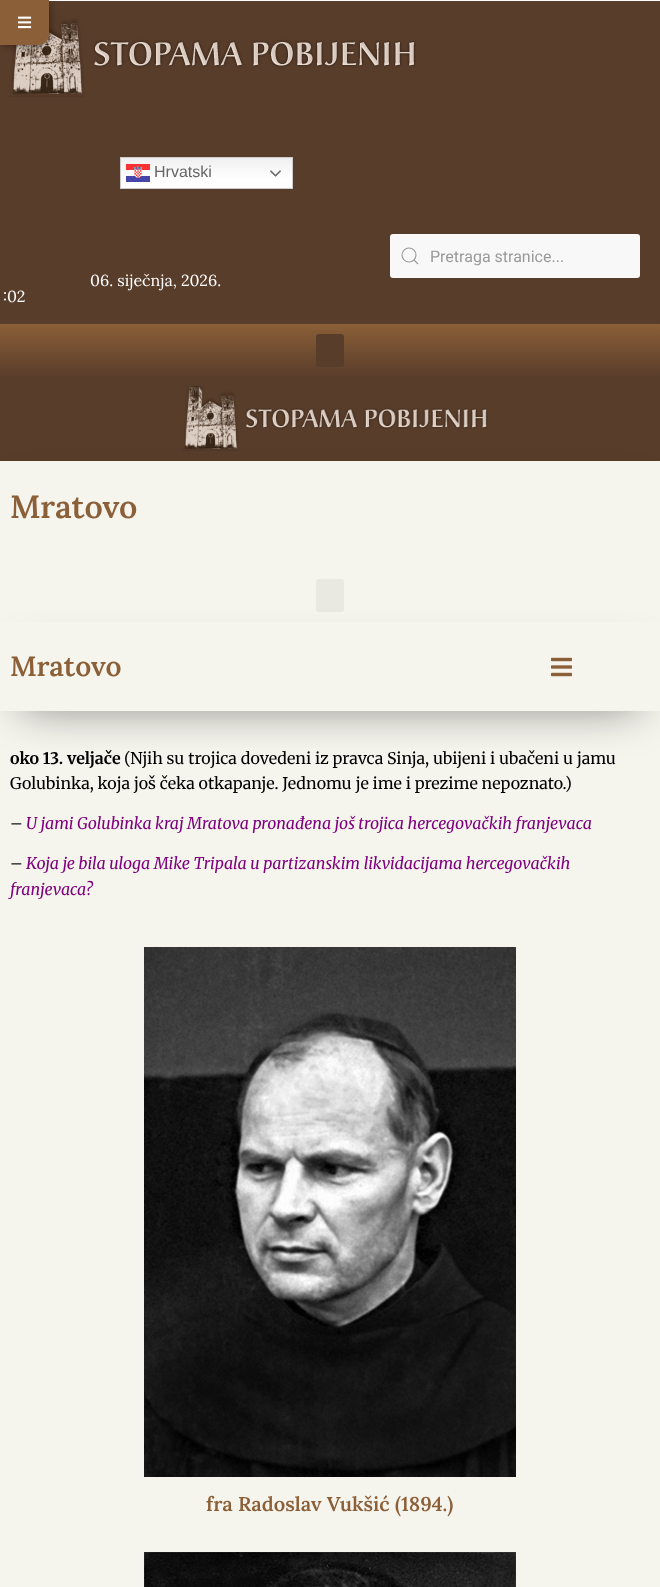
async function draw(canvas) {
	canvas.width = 660;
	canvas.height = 1587;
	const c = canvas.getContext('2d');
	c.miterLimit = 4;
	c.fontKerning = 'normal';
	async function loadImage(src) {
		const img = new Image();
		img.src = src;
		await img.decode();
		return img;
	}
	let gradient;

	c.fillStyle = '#fff';
	c.fillRect(0, 0, 660, 1587);
	c.fillStyle = '#593d2b';
	c.fillRect(0, 1, 660, 323);
	c.drawImage(await loadImage('img2.png'), 9, 11, 407, 86);
	c.fillStyle = '#00000080';
	c.filter = 'blur(5px)';
	c.beginPath();
	c.roundRect(0, 0, 49, 45, 10);
	c.fill();
	c.filter = 'none';
	c.fillStyle = '#8b5f37';
	c.beginPath();
	c.roundRect(0, 0, 49, 45, [0, 0, 10, 0]);
	c.fill();
	c.drawImage(await loadImage('img1.png'), 18, 16, 14, 13);
	gradient = c.createLinearGradient(207, 157, 207, 189);
	gradient.addColorStop(0, '#efefef');
	gradient.addColorStop(0.7, '#fff');
	c.fillStyle = gradient;
	c.fillRect(121, 158, 171, 30);
	c.strokeStyle = '#ccc';
	c.strokeRect(120.5, 157.5, 172, 31);
	c.drawImage(await loadImage('img3.png'), 126, 164, 24, 18);
	c.font = '16px Liberation Sans';
	c.fillStyle = '#666';
	c.fillText('Hrvatski', 154, 177);
	c.drawImage(await loadImage('img4.png'), 270, 170, 11, 7);
	c.fillStyle = '#f8f8f8';
	c.beginPath();
	c.roundRect(390, 234, 250, 44, 3);
	c.fill();
	c.beginPath();
	c.arc(409, 255, 7, 0, 2 * Math.PI);
	c.strokeStyle = '#999';
	c.lineWidth = 1.1;
	c.stroke();
	c.beginPath();
	c.moveTo(414, 260);
	c.lineTo(418, 264);
	c.closePath();
	c.stroke();
	c.font = '16px Roboto';
	c.fillStyle = '#999';
	c.fillText('Pretraga stranice...', 430, 262);
	c.font = '16px Lora';
	c.fillStyle = '#fff';
	c.fillText('06. siječnja, 2026.', 90, 286);
	c.fillText(':02', 3, 302);
	gradient = c.createLinearGradient(330, 324, 330, 377);
	gradient.addColorStop(0, '#8b5f37');
	gradient.addColorStop(1, '#593d2b');
	c.fillStyle = gradient;
	c.fillRect(0, 324, 660, 52);
	c.fillStyle = '#593d2b';
	c.beginPath();
	c.roundRect(316, 334, 28, 33, 3);
	c.fill();
	c.fillRect(0, 376, 660, 85);
	c.drawImage(await loadImage('img5.png'), 182, 386, 306, 65);
	c.fillStyle = '#00000080';
	c.filter = 'blur(23px)';
	c.beginPath();
	c.rect(22, 500, 616, 117);
	c.fill();
	c.filter = 'none';
	c.fillStyle = '#f5f4ed';
	c.fillRect(0, 461, 660, 161);
	c.font = '600 32px Lora';
	c.fillStyle = '#8b5f37';
	c.fillText('Mratovo', 10, 518);
	c.fillStyle = '#e9e8e1';
	c.beginPath();
	c.roundRect(316, 579, 28, 33, 3);
	c.fill();
	c.fillStyle = '#f5f4ed';
	c.fillRect(0, 711, 660, 876);
	c.fillStyle = '#00000080';
	c.filter = 'blur(23px)';
	c.beginPath();
	c.rect(22, 661, 616, 45);
	c.fill();
	c.filter = 'none';
	c.fillStyle = '#f5f4ed';
	c.fillRect(0, 622, 660, 89);
	c.font = '600 28px Lora';
	c.fillStyle = '#8b5f37';
	c.fillText('Mratovo', 10, 676);
	c.drawImage(await loadImage('img6.png'), 551, 657, 21, 20);
	c.font = 'bold 16px Merriweather';
	c.fillStyle = '#000';
	c.fillText('oko 13. veljače', 10, 764);
	c.font = '16px Merriweather';
	for (const [text, x, y] of [
		['(Njih su trojica dovedeni iz pravca Sinja, ubijeni i ubačeni u jamu', 124, 764],
		['Golubinka, koja još čeka otkapanje. Jednomu je ime i prezime nepoznato.)', 10, 789],
		['–', 10, 829],
	]) {
		c.fillText(text, x, y);
	}
	c.font = 'italic 16px Merriweather';
	c.fillStyle = '#800080';
	c.fillText('U jami Golubinka kraj Mratova pronađena još trojica hercegovačkih franjevaca', 26, 829);
	c.font = '16px Merriweather';
	c.fillStyle = '#000';
	c.fillText('–', 10, 869);
	c.font = 'italic 16px Merriweather';
	c.fillStyle = '#800080';
	c.fillText('Koja je bila uloga Mike Tripala u partizanskim likvidacijama hercegovačkih', 26, 869);
	c.fillText('franjevaca?', 10, 895);
	c.drawImage(await loadImage('img7.png'), 144, 947, 372, 530);
	c.font = '600 20px Lora';
	c.fillStyle = '#8b5f37';
	c.fillText('fra Radoslav Vukšić (1894.)', 206, 1511);
	c.drawImage(await loadImage('img8.png'), 144, 1552, 372, 35);
}

draw(document.querySelector('canvas'));
